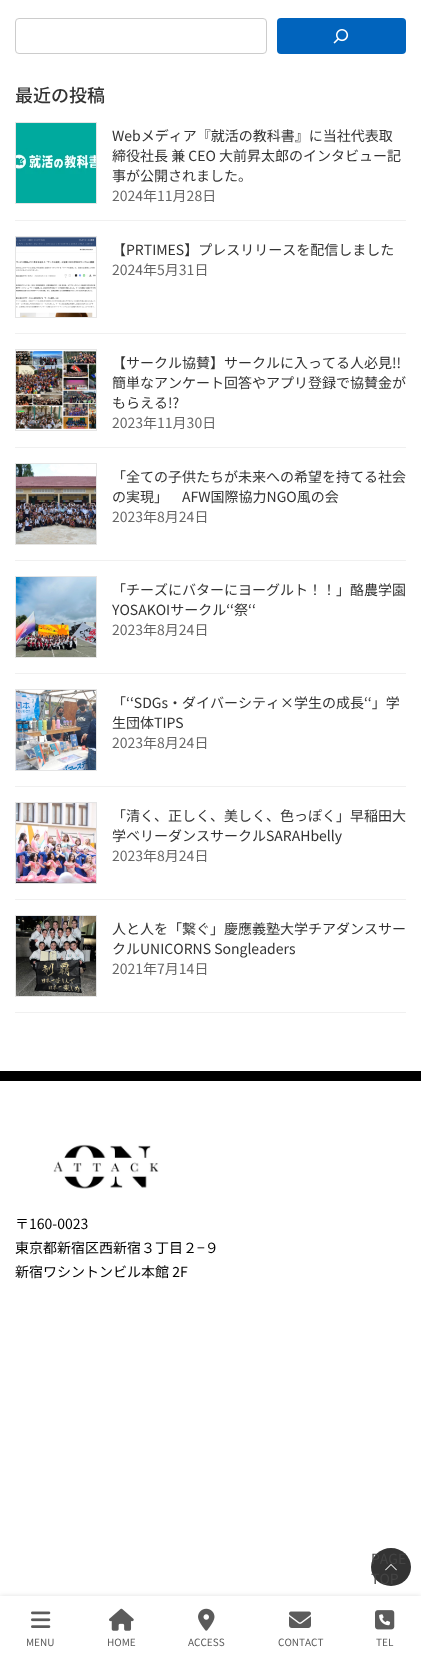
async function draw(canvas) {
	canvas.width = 421;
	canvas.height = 1658;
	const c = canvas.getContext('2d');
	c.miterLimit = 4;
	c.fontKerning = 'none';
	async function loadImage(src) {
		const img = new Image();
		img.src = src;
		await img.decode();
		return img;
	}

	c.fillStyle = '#fff';
	c.fillRect(0, 0, 421, 1658);
	c.beginPath();
	c.roundRect(15.5, 18.5, 251, 35, 3.5);
	c.strokeStyle = '#ccc';
	c.stroke();
	c.fillStyle = '#0164bd';
	c.beginPath();
	c.roundRect(277, 18, 129, 36, 4);
	c.fill();
	c.drawImage(await loadImage('img1.png'), 333, 29, 16, 15);
	c.font = '500 18px Noto Sans JP';
	c.fillStyle = '#333';
	c.fillText('最近の投稿', 15, 102);
	c.fillStyle = '#f0f0f0';
	c.fillRect(15, 220, 391, 1);
	c.strokeStyle = '#e5e5e5';
	c.strokeRect(15.5, 122.5, 81, 81);
	c.drawImage(await loadImage('img2.png'), 16, 123, 80, 80);
	c.font = '14px Noto Sans JP';
	c.fillStyle = '#333';
	for (const [text, x, y] of [
		['Webメディア『就活の教科書』に当社代表取', 112, 141],
		['締役社長 兼 CEO 大前昇太郎のインタビュー記', 112, 161],
		['事が公開されました。', 112, 181],
	]) {
		c.fillText(text, x, y);
	}
	c.fillStyle = '#666';
	c.fillText('2024年11月28日', 112, 201);
	c.fillStyle = '#f0f0f0';
	c.fillRect(15, 333, 391, 1);
	c.strokeRect(15.5, 236.5, 81, 81);
	c.drawImage(await loadImage('img3.png'), 16, 237, 80, 80);
	c.fillStyle = '#333';
	c.fillText('【PRTIMES】プレスリリースを配信しました', 112, 255);
	c.fillStyle = '#666';
	c.fillText('2024年5月31日', 112, 275);
	c.fillStyle = '#f0f0f0';
	c.fillRect(15, 447, 391, 1);
	c.strokeRect(15.5, 349.5, 81, 81);
	c.drawImage(await loadImage('img4.png'), 16, 350, 80, 79);
	c.fillStyle = '#333';
	for (const [text, x, y] of [
		['【サークル協賛】サークルに入ってる人必見!!', 112, 368],
		['簡単なアンケート回答やアプリ登録で協賛金が', 112, 388],
		['もらえる!?', 112, 408],
	]) {
		c.fillText(text, x, y);
	}
	c.fillStyle = '#666';
	c.fillText('2023年11月30日', 112, 428);
	c.fillStyle = '#f0f0f0';
	c.fillRect(15, 560, 391, 1);
	c.strokeRect(15.5, 463.5, 81, 81);
	c.drawImage(await loadImage('img5.png'), 16, 464, 80, 80);
	c.fillStyle = '#333';
	c.fillText('「全ての子供たちが未来への希望を持てる社会', 112, 482);
	c.fillText('の実現」', 112, 502);
	c.fillText('　AFW国際協力NGO風の会', 168, 502);
	c.fillStyle = '#666';
	c.fillText('2023年8月24日', 112, 522);
	c.fillStyle = '#f0f0f0';
	c.fillRect(15, 673, 391, 1);
	c.strokeRect(15.5, 576.5, 81, 81);
	c.drawImage(await loadImage('img6.png'), 16, 577, 80, 80);
	c.fillStyle = '#333';
	c.fillText('「チーズにバターにヨーグルト！！」酪農学園', 112, 595);
	c.fillText('YOSAKOIサークル‘‘祭‘‘', 112, 615);
	c.fillStyle = '#666';
	c.fillText('2023年8月24日', 112, 635);
	c.fillStyle = '#f0f0f0';
	c.fillRect(15, 786, 391, 1);
	c.strokeRect(15.5, 689.5, 81, 81);
	c.drawImage(await loadImage('img7.png'), 16, 690, 80, 80);
	c.fillStyle = '#333';
	c.fillText('「‘‘SDGs・ダイバーシティ×学生の成長‘‘」学', 112, 708);
	c.fillText('生団体TIPS', 112, 728);
	c.fillStyle = '#666';
	c.fillText('2023年8月24日', 112, 748);
	c.fillStyle = '#f0f0f0';
	c.fillRect(15, 899, 391, 1);
	c.strokeRect(15.5, 802.5, 81, 81);
	c.drawImage(await loadImage('img8.png'), 16, 803, 80, 80);
	c.fillStyle = '#333';
	c.fillText('「清く、正しく、美しく、色っぽく」早稲田大', 112, 821);
	c.fillText('学ベリーダンスサークルSARAHbelly', 112, 841);
	c.fillStyle = '#666';
	c.fillText('2023年8月24日', 112, 861);
	c.fillStyle = '#f0f0f0';
	c.fillRect(15, 1012, 391, 1);
	c.strokeRect(15.5, 915.5, 81, 81);
	c.drawImage(await loadImage('img9.png'), 16, 916, 80, 80);
	c.fillStyle = '#333';
	c.fillText('人と人を「繋ぐ」慶應義塾大学チアダンスサー', 112, 934);
	c.fillText('クルUNICORNS Songleaders', 112, 954);
	c.fillStyle = '#666';
	c.fillText('2021年7月14日', 112, 974);
	c.fillStyle = '#000';
	c.fillRect(0, 1071, 421, 10);
	c.drawImage(await loadImage('img10.png'), 53, 1144, 106, 45);
	for (const [text, x, y] of [
		['〒160-0023', 15, 1229],
		['東京都新宿区西新宿３丁目２−９', 15, 1253],
		['新宿ワシントンビル本館 2F', 15, 1277],
	]) {
		c.fillText(text, x, y);
	}
	c.fillStyle = '#333';
	c.beginPath();
	c.ellipse(391, 1567, 20, 19, 0, 0, 2 * Math.PI);
	c.fill();
	c.drawImage(await loadImage('img11.png'), 385, 1564, 12, 7);
	c.fillStyle = '#444';
	c.fillText('PAGE', 371, 1564);
	c.fillText('TOP', 371, 1584);
	c.fillStyle = '#0000001f';
	c.filter = 'blur(2.5px)';
	c.beginPath();
	c.rect(0, 1596, 421, 62);
	c.fill();
	c.filter = 'none';
	c.fillStyle = '#fff';
	c.fillRect(0, 1596, 421, 62);
	c.drawImage(await loadImage('img12.png'), 31, 1611, 20, 17);
	c.font = '10px Noto Sans JP';
	c.fillStyle = '#5b5b5b';
	c.fillText('MENU', 26, 1646);
	c.drawImage(await loadImage('img13.png'), 109, 1608, 25, 23);
	c.fillText('HOME', 107, 1646);
	c.drawImage(await loadImage('img14.png'), 198, 1608, 17, 23);
	c.fillText('ACCESS', 188, 1646);
	c.drawImage(await loadImage('img15.png'), 289, 1611, 22, 17);
	c.fillText('CONTACT', 278, 1646);
	c.drawImage(await loadImage('img16.png'), 375, 1610, 20, 20);
	c.fillText('TEL', 376, 1646);
}

draw(document.querySelector('canvas'));
